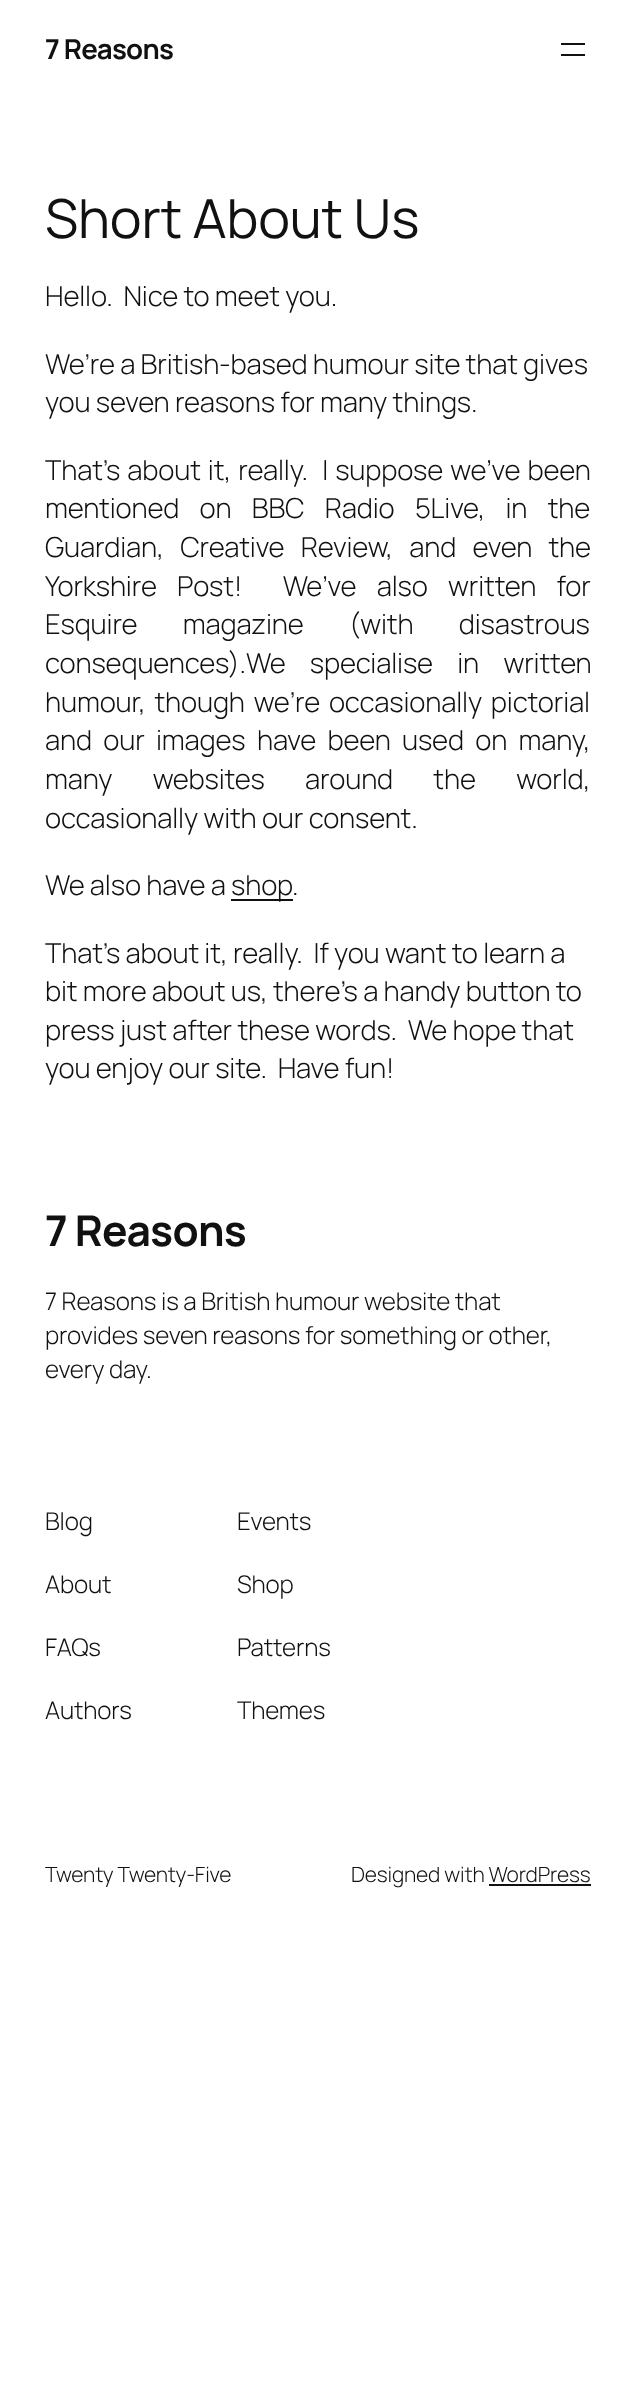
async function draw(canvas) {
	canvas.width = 636;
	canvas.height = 2393;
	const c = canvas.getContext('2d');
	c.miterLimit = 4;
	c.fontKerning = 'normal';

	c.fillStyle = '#fff';
	c.fillRect(0, 0, 636, 2393);
	c.letterSpacing = '-0.75px';
	c.font = 'bold 27.6px Manrope';
	c.fillStyle = '#111';
	c.fillText('7 Reasons', 45, 59);
	c.fillRect(561, 43, 24, 2);
	c.fillRect(561, 54, 24, 2);
	c.letterSpacing = '-0.15px';
	c.font = '53.75px Manrope';
	c.fillText('Short About Us', 45, 238);
	c.font = '300 27.6px Manrope';
	for (const [text, x, y] of [
		['Hello.  Nice to meet you.', 45, 306],
		['We’re a British-based humour site that gives', 45, 374],
		['you seven reasons for many things.', 45, 412],
	]) {
		c.fillText(text, x, y);
	}
	c.wordSpacing = '1.75px';
	c.fillText('That’s about it, really.  I suppose we’ve been', 45, 480);
	c.wordSpacing = '15px';
	c.fillText('mentioned on BBC Radio 5Live, in the', 45, 518);
	c.wordSpacing = '11px';
	c.fillText('Guardian, Creative Review, and even the', 45, 557);
	c.wordSpacing = '15px';
	c.fillText('Yorkshire Post!  We’ve also written for', 45, 596);
	c.wordSpacing = '40px';
	c.fillText('Esquire magazine (with disastrous', 45, 634);
	c.wordSpacing = '19px';
	c.fillText('consequences).We specialise in written', 45, 673);
	c.wordSpacing = '3.5px';
	c.fillText('humour, though we’re occasionally pictorial', 45, 712);
	c.wordSpacing = '6px';
	c.fillText('and our images have been used on many,', 45, 750);
	c.wordSpacing = '35px';
	c.fillText('many websites around the world,', 45, 789);
	c.wordSpacing = '0px';
	c.fillText('occasionally with our consent.', 45, 828);
	c.fillText('We also have a', 45, 895);
	c.fillRect(231, 899, 62, 2);
	for (const [text, x, y] of [
		['shop', 231, 895],
		['.', 292, 895],
		['That’s about it, really.  If you want to learn a', 45, 963],
		['bit more about us, there’s a handy button to', 45, 1001],
		['press just after these words.  We hope that', 45, 1040],
		['you enjoy our site.  Have fun!', 45, 1078],
	]) {
		c.fillText(text, x, y);
	}
	c.letterSpacing = '-0.75px';
	c.font = 'bold 42.5px Manrope';
	c.fillText('7 Reasons', 45, 1246);
	c.letterSpacing = '-0.15px';
	c.font = '300 24.3px Manrope';
	for (const [text, x, y] of [
		['7 Reasons is a British humour website that', 45, 1310],
		['provides seven reasons for something or other,', 45, 1344],
		['every day.', 45, 1378],
		['Blog', 45, 1530],
		['About', 45, 1593],
		['FAQs', 45, 1656],
		['Authors', 45, 1719],
		['Events', 237, 1530],
		['Shop', 237, 1593],
		['Patterns', 237, 1656],
		['Themes', 237, 1719],
	]) {
		c.fillText(text, x, y);
	}
	c.font = '300 21px Manrope';
	c.fillText('Twenty Twenty-Five', 45, 1882);
	c.fillText('Designed with WordPress', 351, 1882);
	c.fillRect(489, 1884, 102, 2);
}

draw(document.querySelector('canvas'));
